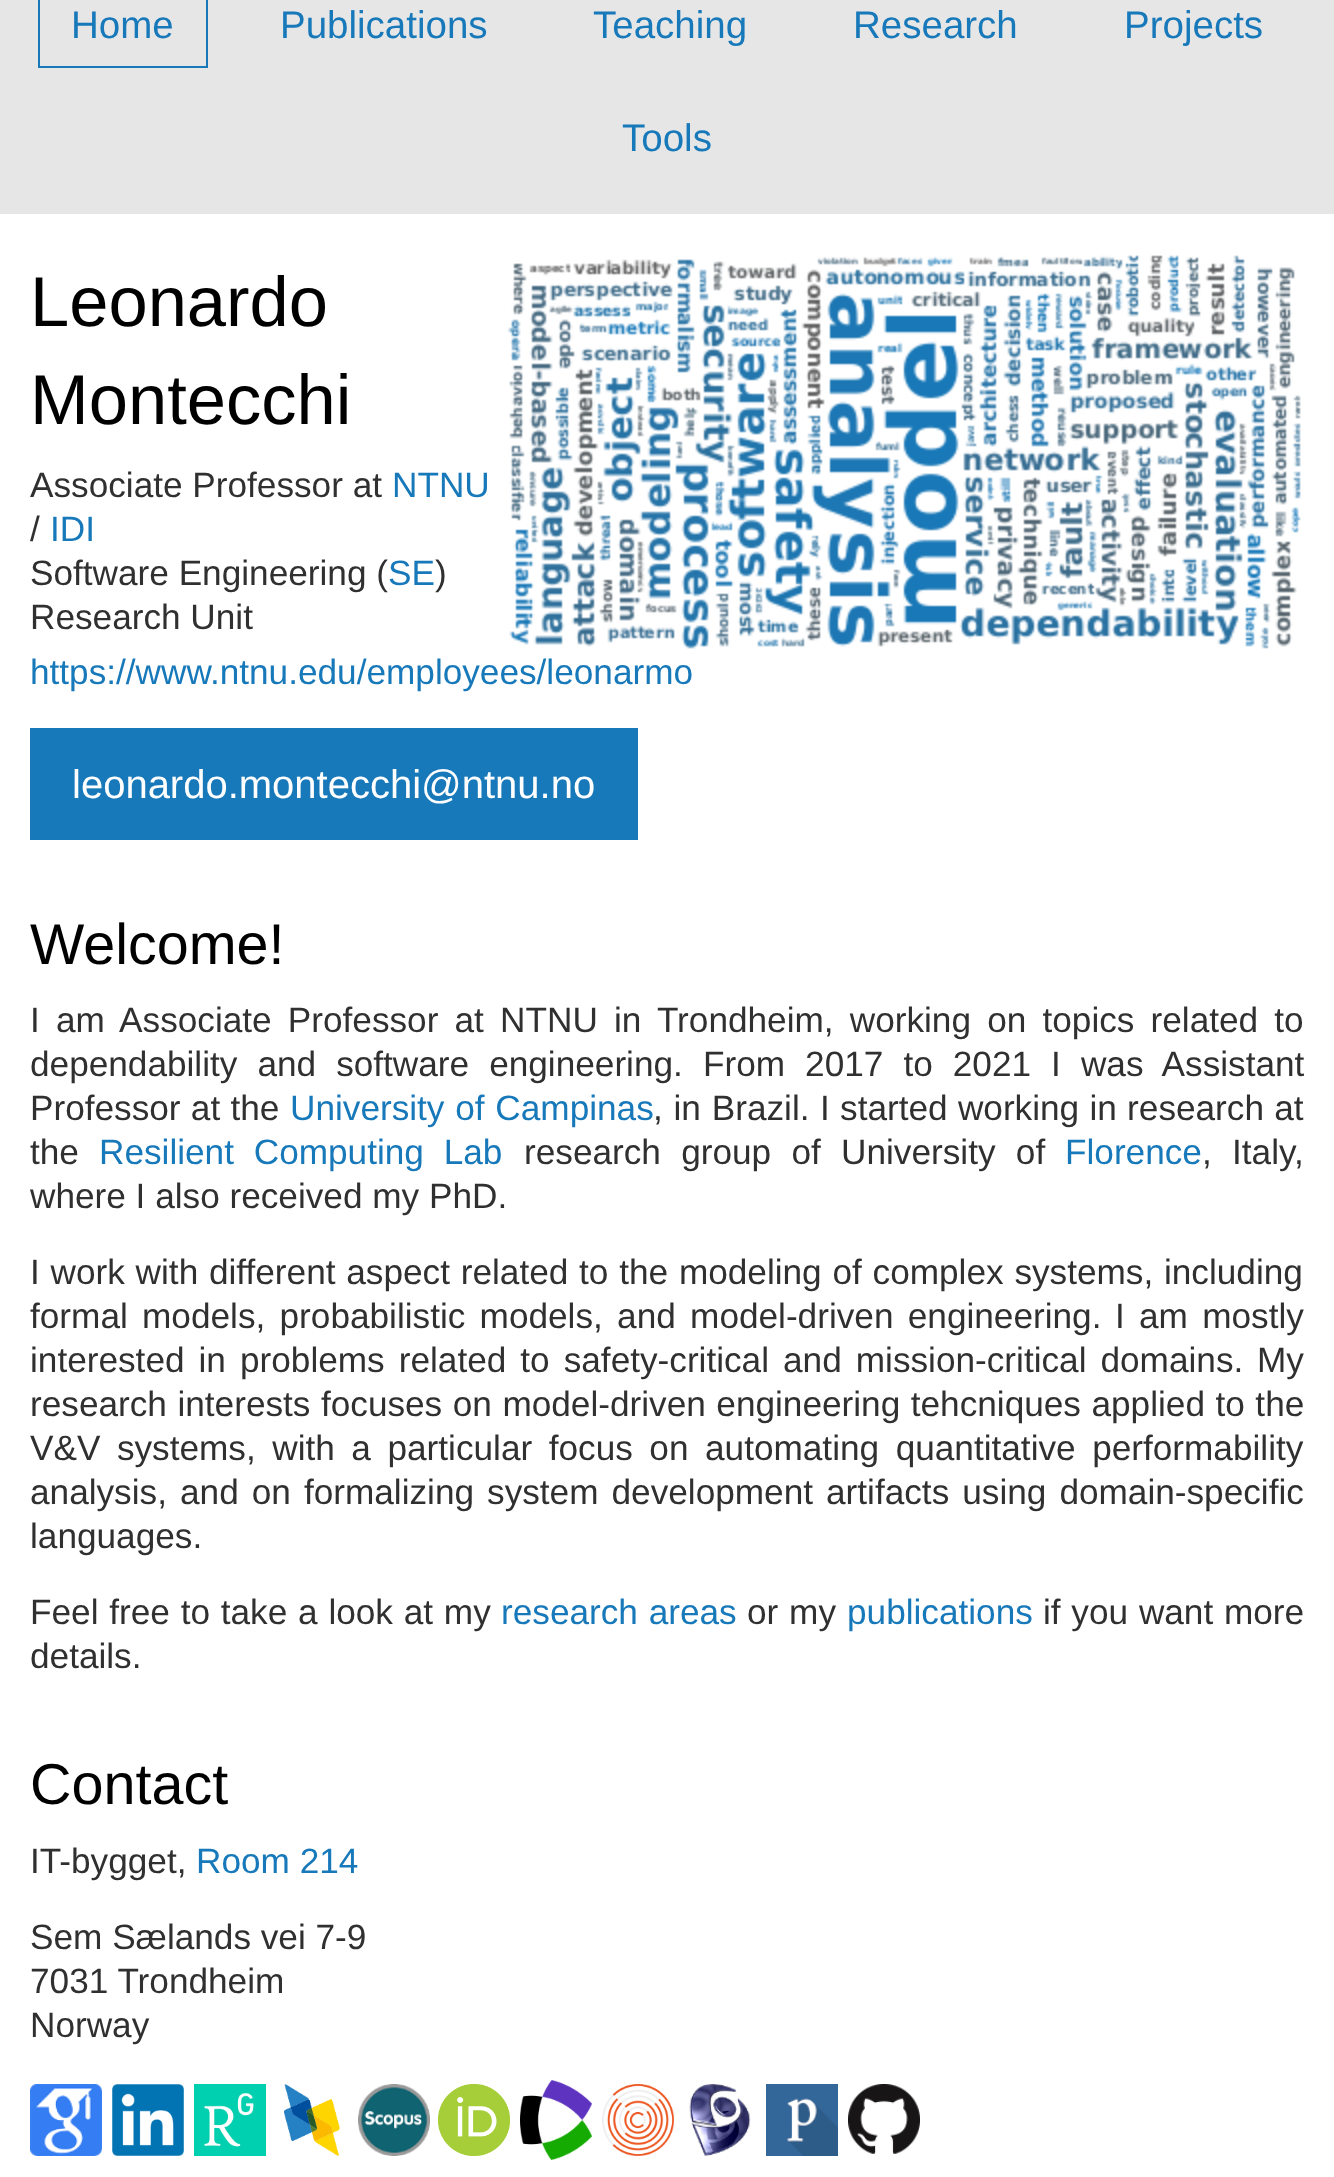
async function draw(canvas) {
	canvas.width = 1334;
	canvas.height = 2177;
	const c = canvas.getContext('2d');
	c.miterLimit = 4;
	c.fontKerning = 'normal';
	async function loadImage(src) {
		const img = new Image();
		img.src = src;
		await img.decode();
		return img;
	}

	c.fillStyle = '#fff';
	c.fillRect(0, 0, 1334, 2177);
	c.fillStyle = '#e6e6e6';
	c.fillRect(0, 0, 1334, 214);
	c.strokeStyle = '#1779ba';
	c.lineWidth = 2;
	c.strokeRect(39, -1, 168, 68);
	c.font = '38.5px Liberation Sans';
	c.fillStyle = '#1779ba';
	for (const [text, x, y] of [
		['Home', 71, 38],
		['Publications', 280, 38],
		['Teaching', 593, 38],
		['Research', 853, 38],
		['Projects', 1124, 38],
		['Tools', 622, 151],
	]) {
		c.fillText(text, x, y);
	}
	c.font = '70.5px Liberation Sans';
	c.fillStyle = '#000';
	c.fillText('Leonardo', 30, 326);
	c.fillText('Montecchi', 30, 424);
	c.drawImage(await loadImage('img1.png'), 507, 255, 794, 394);
	c.font = '35.2px Liberation Sans';
	c.fillStyle = '#303030';
	c.fillText('Associate Professor at', 30, 497);
	c.fillStyle = '#1779ba';
	c.fillText('NTNU', 392, 497);
	c.fillStyle = '#303030';
	c.fillText('/', 30, 541);
	c.fillStyle = '#1779ba';
	c.fillText('IDI', 50, 541);
	c.fillStyle = '#303030';
	c.fillText('Software Engineering (', 30, 585);
	c.fillStyle = '#1779ba';
	c.fillText('SE', 388, 585);
	c.fillStyle = '#303030';
	c.fillText(')', 435, 585);
	c.fillText('Research Unit', 30, 629);
	c.fillStyle = '#1779ba';
	c.fillText('https://www.ntnu.edu/employees/leonarmo', 30, 684);
	c.fillRect(30, 728, 608, 112);
	c.font = '40px Liberation Sans';
	c.fillStyle = '#fefefe';
	c.fillText('leonardo.montecchi@ntnu.no', 72, 798);
	c.font = '57.5px Liberation Sans';
	c.fillStyle = '#000';
	c.fillText('Welcome!', 30, 964);
	c.wordSpacing = '6.4px';
	c.font = '35.2px Liberation Sans';
	c.fillStyle = '#303030';
	c.fillText('I am Associate Professor at NTNU in Trondheim, working on topics related to', 30, 1032);
	c.wordSpacing = '10.25px';
	c.fillText('dependability and software engineering.', 30, 1076);
	c.fillText('From 2017 to 2021 I was Assistant', 703, 1076);
	c.wordSpacing = '0.5px';
	c.fillText('Professor at the', 30, 1120);
	c.wordSpacing = '1px';
	c.fillStyle = '#1779ba';
	c.fillText('University of Campinas', 290, 1120);
	c.fillStyle = '#303030';
	c.fillText(', in Brazil.', 653, 1120);
	c.wordSpacing = '0.5px';
	c.fillText('I started working in research at', 820, 1120);
	c.wordSpacing = '0px';
	c.fillText('the', 30, 1164);
	c.wordSpacing = '10px';
	c.fillStyle = '#1779ba';
	c.fillText('Resilient Computing Lab', 99, 1164);
	c.wordSpacing = '10.5px';
	c.fillStyle = '#303030';
	c.fillText('research group of University of', 524, 1164);
	c.wordSpacing = '0px';
	c.fillStyle = '#1779ba';
	c.fillText('Florence', 1065, 1164);
	c.wordSpacing = '10.5px';
	c.fillStyle = '#303030';
	c.fillText(', Italy,', 1202, 1164);
	c.wordSpacing = '0px';
	c.fillText('where I also received my PhD.', 30, 1208);
	c.wordSpacing = '1px';
	c.fillText('I work with different aspect related to the modeling of complex systems, including', 30, 1284);
	c.wordSpacing = '4.5px';
	c.fillText('formal models, probabilistic models, and model-driven engineering.', 30, 1328);
	c.fillText('I am mostly', 1115, 1328);
	c.wordSpacing = '4.25px';
	c.fillText('interested in problems related to safety-critical and mission-critical domains.', 30, 1372);
	c.wordSpacing = '0px';
	c.fillText('My', 1257, 1372);
	c.wordSpacing = '0.75px';
	c.fillText('research interests focuses on model-driven engineering tehcniques applied to the', 30, 1416);
	c.wordSpacing = '6.75px';
	c.fillText('V&V systems, with a particular focus on automating quantitative performability', 30, 1460);
	c.wordSpacing = '0px';
	c.fillText('analysis,', 30, 1504);
	c.wordSpacing = '3.25px';
	c.fillText('and on formalizing system development artifacts using domain-specific', 180, 1504);
	c.wordSpacing = '0px';
	c.fillText('languages.', 30, 1548);
	c.wordSpacing = '1px';
	c.fillText('Feel free to take a look at my', 30, 1624);
	c.fillStyle = '#1779ba';
	c.fillText('research areas', 501, 1624);
	c.fillStyle = '#303030';
	c.fillText('or my', 747, 1624);
	c.wordSpacing = '0px';
	c.fillStyle = '#1779ba';
	c.fillText('publications', 847, 1624);
	c.wordSpacing = '1px';
	c.fillStyle = '#303030';
	c.fillText('if you want more', 1043, 1624);
	c.wordSpacing = '0px';
	c.fillText('details.', 30, 1668);
	c.font = '57.5px Liberation Sans';
	c.fillStyle = '#000';
	c.fillText('Contact', 30, 1804);
	c.font = '35.2px Liberation Sans';
	c.fillStyle = '#303030';
	c.fillText('IT-bygget,', 30, 1873);
	c.fillStyle = '#1779ba';
	c.fillText('Room 214', 196, 1873);
	c.fillStyle = '#303030';
	for (const [text, x, y] of [
		['Sem Sælands vei 7-9', 30, 1949],
		['7031 Trondheim', 30, 1993],
		['Norway', 30, 2037],
	]) {
		c.fillText(text, x, y);
	}
	c.drawImage(await loadImage('img2.png'), 30, 2084, 72, 72);
	c.drawImage(await loadImage('img3.png'), 112, 2084, 72, 72);
	c.drawImage(await loadImage('img4.png'), 194, 2084, 72, 72);
	c.drawImage(await loadImage('img5.png'), 284, 2084, 56, 72);
	c.drawImage(await loadImage('img6.png'), 358, 2084, 72, 72);
	c.drawImage(await loadImage('img7.png'), 438, 2084, 72, 72);
	c.drawImage(await loadImage('img8.png'), 520, 2080, 72, 80);
	c.drawImage(await loadImage('img9.png'), 602, 2084, 72, 72);
	c.drawImage(await loadImage('img10.png'), 689, 2084, 62, 72);
	c.drawImage(await loadImage('img11.png'), 766, 2084, 72, 72);
	c.drawImage(await loadImage('img12.png'), 848, 2084, 72, 70);
}

draw(document.querySelector('canvas'));
